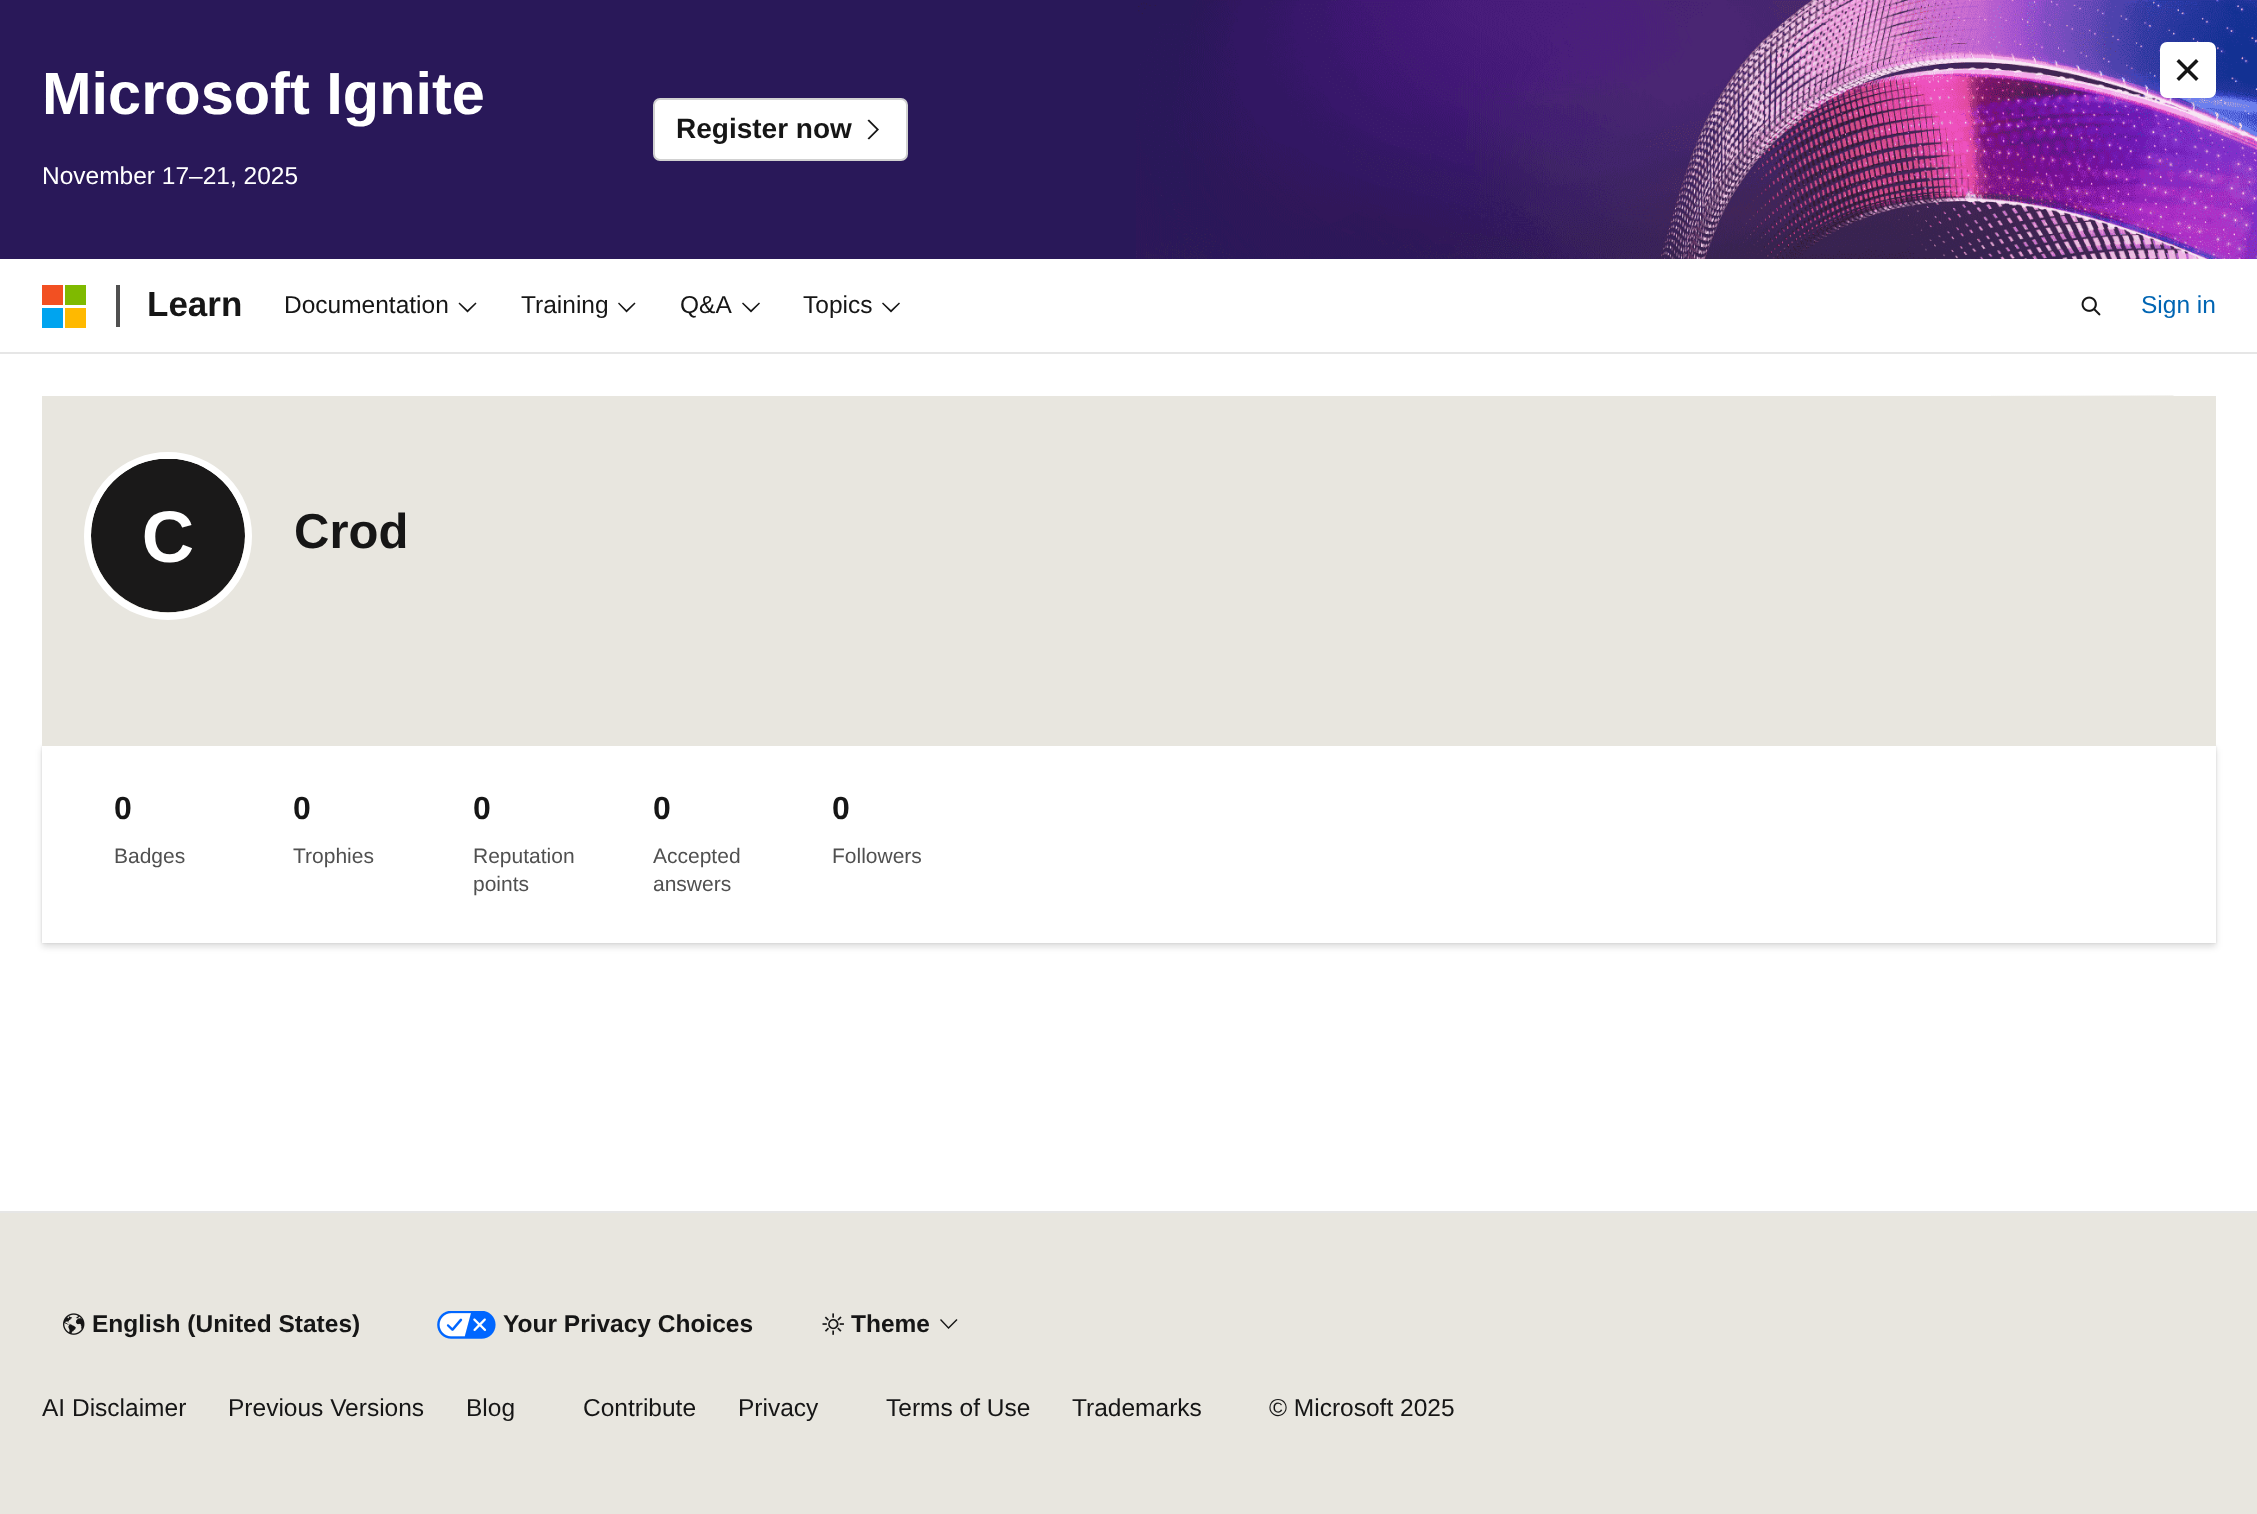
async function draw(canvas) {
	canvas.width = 2257;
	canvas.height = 1514;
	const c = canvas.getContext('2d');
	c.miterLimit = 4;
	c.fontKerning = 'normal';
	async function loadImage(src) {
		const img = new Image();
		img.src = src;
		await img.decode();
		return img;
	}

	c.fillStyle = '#fff';
	c.fillRect(0, 0, 2257, 1514);
	c.fillStyle = '#291859';
	c.fillRect(0, 0, 1136, 259);
	c.drawImage(await loadImage('img1.png'), 1136, 0, 1121, 259);
	c.font = 'bold 59.5px Liberation Sans';
	c.fillStyle = '#fff';
	c.fillText('Microsoft Ignite', 42, 114);
	c.font = '24.5px Liberation Sans';
	c.fillText('November 17–21, 2025', 42, 184);
	c.beginPath();
	c.roundRect(654, 99, 253, 61, 6);
	c.fill();
	c.strokeStyle = '#d1d1d1';
	c.lineWidth = 2;
	c.stroke();
	c.font = 'bold 28px Liberation Sans';
	c.fillStyle = '#161616';
	c.fillText('Register now', 676, 138);
	c.beginPath();
	c.moveTo(879, 129.5);
	c.lineTo(869, 139.5);
	c.lineTo(867.5, 138.5);
	c.lineTo(876.5, 129.5);
	c.lineTo(867.5, 120.5);
	c.lineTo(869, 119.5);
	c.closePath();
	c.fill();
	c.fillStyle = '#fff';
	c.beginPath();
	c.roundRect(2160, 42, 56, 56, 7);
	c.fill();
	c.fillStyle = '#161616';
	c.beginPath();
	c.moveTo(2179, 59);
	c.lineTo(2198.5, 78.5);
	c.lineTo(2196, 81);
	c.lineTo(2176.5, 61.5);
	c.closePath();
	c.fill();
	c.beginPath();
	c.moveTo(2196, 59);
	c.lineTo(2198.5, 61.5);
	c.lineTo(2179, 81);
	c.lineTo(2176.5, 78.5);
	c.closePath();
	c.fill();
	for (const [x, y, w, h, color] of [
		[0, 352, 2257, 2, '#e6e6e6'],
		[42, 285, 21, 20, '#f25022'],
		[65, 285, 21, 20, '#7fba00'],
		[42, 308, 21, 20, '#00a4ef'],
		[65, 308, 21, 20, '#ffb900'],
		[116, 285, 4, 42, '#505050'],
	]) {
		c.fillStyle = color;
		c.fillRect(x, y, w, h);
	}
	c.font = 'bold 35px Liberation Sans';
	c.fillStyle = '#161616';
	c.fillText('Learn', 147, 316);
	c.font = '24.5px Liberation Sans';
	c.fillText('Documentation', 284, 313);
	c.beginPath();
	c.moveTo(467.5, 312.5);
	c.lineTo(458.5, 303.5);
	c.lineTo(459.5, 302.5);
	c.lineTo(467.5, 310);
	c.lineTo(475.5, 302.5);
	c.lineTo(476.5, 303.5);
	c.closePath();
	c.fill();
	c.fillText('Training', 521, 313);
	c.beginPath();
	c.moveTo(626.5, 312.5);
	c.lineTo(618, 303.5);
	c.lineTo(619, 302.5);
	c.lineTo(626.5, 310);
	c.lineTo(634.5, 302.5);
	c.lineTo(635.5, 303.5);
	c.closePath();
	c.fill();
	c.fillText('Q&A', 680, 313);
	c.beginPath();
	c.moveTo(751, 312.5);
	c.lineTo(742, 303.5);
	c.lineTo(743, 302.5);
	c.lineTo(751, 310);
	c.lineTo(759, 302.5);
	c.lineTo(760, 303.5);
	c.closePath();
	c.fill();
	c.fillText('Topics', 803, 313);
	c.beginPath();
	c.moveTo(891, 312.5);
	c.lineTo(882, 303.5);
	c.lineTo(883, 302.5);
	c.lineTo(891, 310);
	c.lineTo(899, 302.5);
	c.lineTo(900, 303.5);
	c.closePath();
	c.fill();
	c.drawImage(await loadImage('img2.png'), 2081, 296, 20, 20);
	c.fillStyle = '#0065b3';
	c.fillText('Sign in', 2141, 313);
	c.fillStyle = '#0000001c';
	c.filter = 'blur(1px)';
	c.beginPath();
	c.rect(42, 746, 2174, 197);
	c.fill();
	c.filter = 'none';
	c.fillStyle = '#00000021';
	c.filter = 'blur(3px)';
	c.beginPath();
	c.rect(42, 749, 2174, 198);
	c.fill();
	c.filter = 'none';
	c.fillStyle = '#e8e6df';
	c.fillRect(42, 396, 2174, 350);
	c.drawImage(await loadImage('img3.png'), 1991, 395, 183, 1);
	c.beginPath();
	c.arc(168, 536, 80.5, 0, 2 * Math.PI);
	c.strokeStyle = '#fff';
	c.lineWidth = 7;
	c.stroke();
	c.drawImage(await loadImage('img4.png'), 91, 459, 154, 154);
	c.font = 'bold 49px Liberation Sans';
	c.fillStyle = '#161616';
	c.fillText('Crod', 294, 548);
	c.fillStyle = '#fff';
	c.fillRect(42, 746, 2174, 197);
	c.font = 'bold 32px Liberation Sans';
	c.fillStyle = '#161616';
	c.fillText('0', 114, 819);
	c.font = '21px Liberation Sans';
	c.fillStyle = '#505050';
	c.fillText('Badges', 114, 863);
	c.font = 'bold 32px Liberation Sans';
	c.fillStyle = '#161616';
	c.fillText('0', 293, 819);
	c.font = '21px Liberation Sans';
	c.fillStyle = '#505050';
	c.fillText('Trophies', 293, 863);
	c.font = 'bold 32px Liberation Sans';
	c.fillStyle = '#161616';
	c.fillText('0', 473, 819);
	c.font = '21px Liberation Sans';
	c.fillStyle = '#505050';
	c.fillText('Reputation', 473, 863);
	c.fillText('points', 473, 891);
	c.font = 'bold 32px Liberation Sans';
	c.fillStyle = '#161616';
	c.fillText('0', 653, 819);
	c.font = '21px Liberation Sans';
	c.fillStyle = '#505050';
	c.fillText('Accepted', 653, 863);
	c.fillText('answers', 653, 891);
	c.font = 'bold 32px Liberation Sans';
	c.fillStyle = '#161616';
	c.fillText('0', 832, 819);
	c.font = '21px Liberation Sans';
	c.fillStyle = '#505050';
	c.fillText('Followers', 832, 863);
	c.fillStyle = '#e8e6df';
	c.fillRect(0, 1213, 2257, 301);
	c.fillStyle = '#e6e6e6';
	c.fillRect(0, 1211, 2257, 2);
	c.drawImage(await loadImage('img5.png'), 63, 1313, 22, 22);
	c.font = 'bold 24.5px Liberation Sans';
	c.fillStyle = '#161616';
	c.fillText('English (United States)', 92, 1332);
	c.drawImage(await loadImage('img6.png'), 437, 1311, 59, 28);
	c.fillText('Your Privacy Choices', 503, 1332);
	c.drawImage(await loadImage('img7.png'), 822, 1313, 22, 22);
	c.fillText('Theme', 851, 1332);
	c.beginPath();
	c.moveTo(948.5, 1329);
	c.lineTo(940, 1320);
	c.lineTo(941, 1319);
	c.lineTo(948.5, 1327);
	c.lineTo(956.5, 1319);
	c.lineTo(957.5, 1320);
	c.closePath();
	c.fill();
	c.font = '24.5px Liberation Sans';
	for (const [text, x, y] of [
		['AI Disclaimer', 42, 1416],
		['Previous Versions', 228, 1416],
		['Blog', 466, 1416],
		['Contribute', 583, 1416],
		['Privacy', 738, 1416],
		['Terms of Use', 886, 1416],
		['Trademarks', 1072, 1416],
		['© Microsoft 2025', 1269, 1416],
	]) {
		c.fillText(text, x, y);
	}
}

draw(document.querySelector('canvas'));
